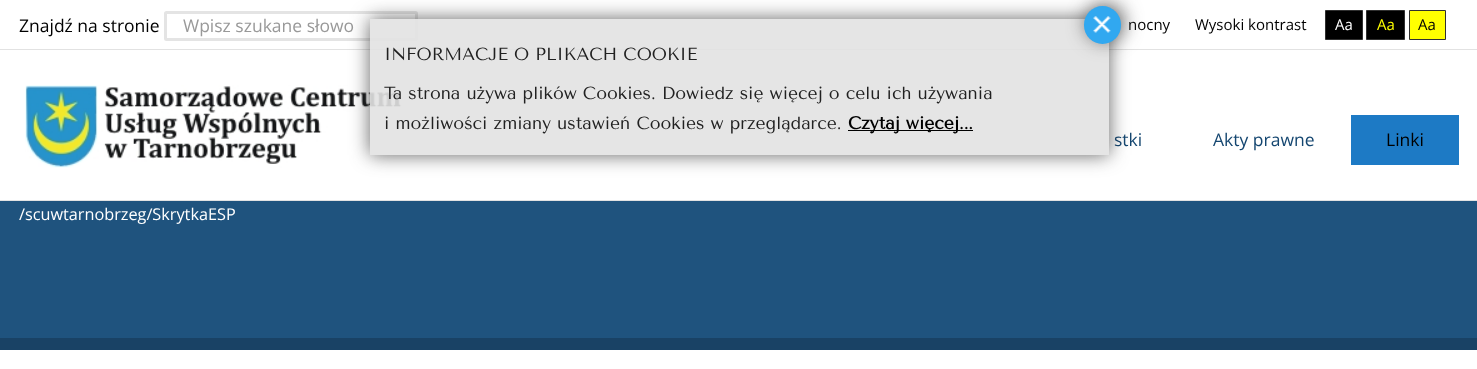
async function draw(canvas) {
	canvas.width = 1477;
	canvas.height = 369;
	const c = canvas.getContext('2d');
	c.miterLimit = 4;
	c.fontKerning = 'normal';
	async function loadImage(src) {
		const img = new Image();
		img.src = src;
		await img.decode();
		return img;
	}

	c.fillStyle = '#1f537e';
	c.fillRect(0, 0, 1477, 369);
	for (const [x, y, w, h, color] of [
		[0, 200, 1477, 1, '#e2e2e2'],
		[0, 0, 1477, 49, '#fff'],
		[0, 49, 1477, 1, '#e2e2e2'],
	]) {
		c.fillStyle = color;
		c.fillRect(x, y, w, h);
	}
	c.font = '17.5px Open Sans';
	c.fillStyle = '#000';
	c.fillText('Znajdź na stronie', 19, 32);
	c.beginPath();
	c.roundRect(165.5, 12.5, 251, 27, 1);
	c.strokeStyle = '#e4e4e4';
	c.lineWidth = 3;
	c.stroke();
	c.fillStyle = '#999';
	c.fillText('Wpisz szukane słowo', 183, 32);
	c.font = '15px Open Sans';
	c.fillStyle = '#000';
	c.fillText('nocny', 1128, 30);
	c.fillText('Wysoki kontrast', 1195, 30);
	c.beginPath();
	c.rect(1325.5, 10.5, 37, 29);
	c.fill();
	c.strokeStyle = '#303030';
	c.lineWidth = 1;
	c.stroke();
	c.fillStyle = '#fff';
	c.fillText('Aa', 1335, 30);
	c.fillStyle = '#000';
	c.beginPath();
	c.rect(1366.5, 10.5, 38, 29);
	c.fill();
	c.stroke();
	c.fillStyle = '#ff0';
	c.fillText('Aa', 1377, 30);
	c.beginPath();
	c.rect(1409.5, 10.5, 36, 29);
	c.fill();
	c.stroke();
	c.fillStyle = '#000';
	c.fillText('Aa', 1418, 30);
	c.fillStyle = '#fff';
	c.fillRect(0, 50, 1477, 150);
	c.drawImage(await loadImage('img1.png'), 25, 85, 377, 83);
	c.font = '17.5px Open Sans';
	c.fillStyle = '#144670';
	c.fillText('stki', 1114, 146);
	c.fillText('Akty prawne', 1213, 146);
	c.fillStyle = '#1d7ac5';
	c.fillRect(1351, 115, 108, 50);
	c.fillStyle = '#000';
	c.fillText('Linki', 1386, 146);
	c.save();
	c.beginPath();
	c.moveTo(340, 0);
	c.lineTo(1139, 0);
	c.lineTo(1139, 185);
	c.lineTo(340, 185);
	c.closePath();
	c.moveTo(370, 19);
	c.lineTo(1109, 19);
	c.lineTo(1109, 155);
	c.lineTo(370, 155);
	c.closePath();
	c.clip('evenodd');
	c.fillStyle = '#323232bf';
	c.filter = 'blur(9.5px)';
	c.beginPath();
	c.rect(370, 19, 739, 136);
	c.fill();
	c.filter = 'none';
	c.restore();
	c.fillStyle = '#e2e2e2e6';
	c.fillRect(370, 19, 739, 136);
	c.fillStyle = '#323232bf';
	c.filter = 'blur(9.5px)';
	c.beginPath();
	c.roundRect(1086, 4, 38, 37, 18.5);
	c.fill();
	c.filter = 'none';
	c.fillStyle = '#31a8f0';
	c.beginPath();
	c.roundRect(1084, 6, 37, 38, 18.5);
	c.fill();
	c.drawImage(await loadImage('img2.png'), 1093, 16, 18, 17);
	c.font = '17.5px Tenor Sans';
	c.fillStyle = '#212121';
	for (const [text, x, y] of [
		['INFORMACJE O PLIKACH COOKIE', 384, 60],
		['Ta strona używa plików Cookies. Dowiedz się więcej o celu ich używania', 384, 99],
		['i możliwości zmiany ustawień Cookies w przeglądarce.', 384, 129],
	]) {
		c.fillText(text, x, y);
	}
	c.fillStyle = '#000';
	c.fillRect(848, 130, 125, 1);
	c.font = 'bold 17.5px Tenor Sans';
	c.fillText('Czytaj więcej...', 848, 129);
	c.font = '16.25px Open Sans';
	c.fillStyle = '#fff';
	c.fillText('/scuwtarnobrzeg/SkrytkaESP', 19, 220);
	c.fillStyle = '#194265';
	c.fillRect(0, 338, 1477, 12);
	c.fillStyle = '#fff';
	c.fillRect(0, 350, 1477, 19);
}

draw(document.querySelector('canvas'));
